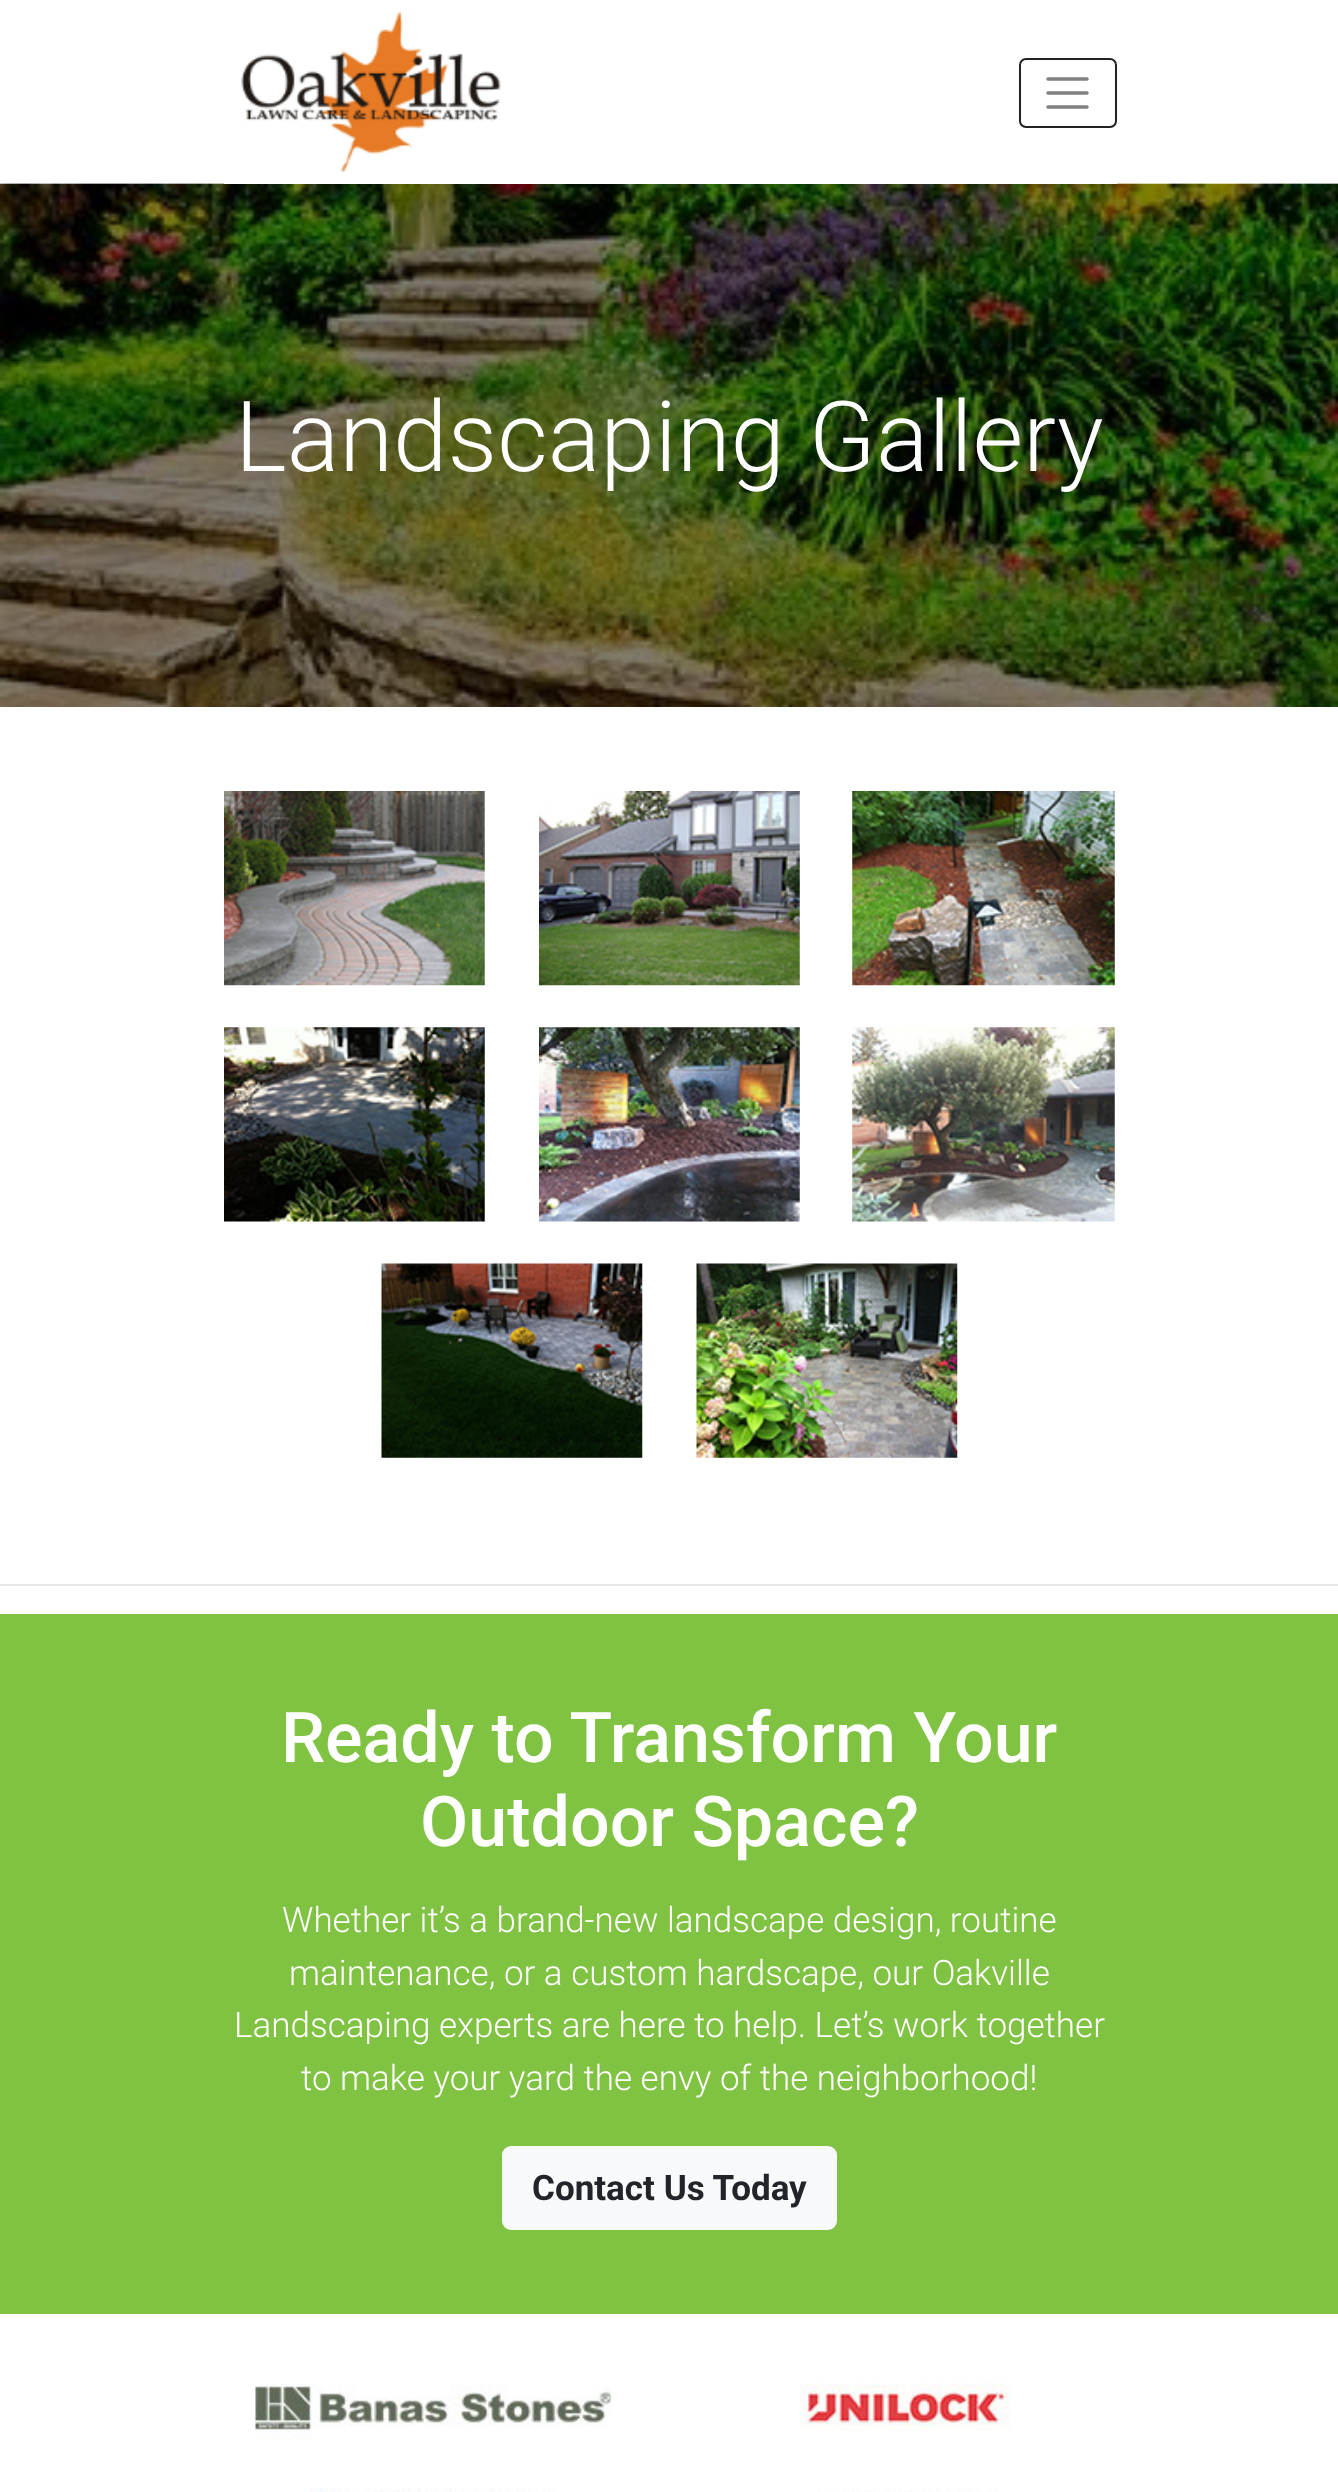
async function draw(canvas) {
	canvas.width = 1338;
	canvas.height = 2492;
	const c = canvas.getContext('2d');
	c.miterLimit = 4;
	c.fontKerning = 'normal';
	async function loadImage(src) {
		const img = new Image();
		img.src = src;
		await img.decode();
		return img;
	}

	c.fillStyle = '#fff';
	c.fillRect(0, 0, 1338, 2492);
	c.drawImage(await loadImage('img2.png'), 0, 183, 1338, 524);
	c.fillRect(224, 183, 893, 1);
	c.drawImage(await loadImage('img1.png'), 241, 11, 260, 162);
	c.beginPath();
	c.roundRect(1020, 59, 96, 68, 6);
	c.strokeStyle = '#222';
	c.lineWidth = 2;
	c.stroke();
	c.beginPath();
	c.moveTo(1048, 79);
	c.lineTo(1087, 79);
	c.moveTo(1048, 93);
	c.lineTo(1087, 93);
	c.moveTo(1048, 107);
	c.lineTo(1087, 107);
	c.strokeStyle = '#808080';
	c.lineWidth = 3.5;
	c.lineCap = 'round';
	c.stroke();
	c.font = '300 98px Roboto';
	c.fillText('Landscaping Gallery', 235, 471);
	c.drawImage(await loadImage('img3.png'), 224, 791, 261, 195);
	c.drawImage(await loadImage('img4.png'), 539, 791, 261, 195);
	c.drawImage(await loadImage('img5.png'), 852, 791, 263, 195);
	c.drawImage(await loadImage('img6.png'), 224, 1027, 261, 195);
	c.drawImage(await loadImage('img7.png'), 539, 1027, 261, 195);
	c.drawImage(await loadImage('img8.png'), 852, 1027, 263, 195);
	c.drawImage(await loadImage('img9.png'), 381, 1263, 262, 195);
	c.drawImage(await loadImage('img10.png'), 696, 1263, 262, 195);
	c.fillStyle = '#e6e6e6';
	c.fillRect(0, 1584, 1338, 2);
	c.fillStyle = '#80c343';
	c.fillRect(0, 1614, 1338, 700);
	c.font = '500 70px Roboto';
	c.fillStyle = '#fff';
	c.fillText('Ready to Transform Your', 281, 1762);
	c.fillText('Outdoor Space?', 420, 1846);
	c.font = '300 35px Roboto';
	for (const [text, x, y] of [
		['Whether it’s a brand-new landscape design, routine', 282, 1932],
		['maintenance, or a custom hardscape, our Oakville', 289, 1985],
		['Landscaping experts are here to help. Let’s work together', 234, 2037],
		['to make your yard the envy of the neighborhood!', 301, 2090],
	]) {
		c.fillText(text, x, y);
	}
	c.fillStyle = '#f8f9fa';
	c.beginPath();
	c.roundRect(503, 2147, 333, 82, 8);
	c.fill();
	c.strokeStyle = '#f8f9fa';
	c.lineWidth = 2;
	c.stroke();
	c.font = 'bold 35px Roboto';
	c.fillStyle = '#212529';
	c.fillText('Contact Us Today', 532, 2200);
	c.drawImage(await loadImage('img11.png'), 255, 2383, 356, 57);
	c.drawImage(await loadImage('img12.png'), 799, 2383, 212, 48);
	c.drawImage(await loadImage('img13.png'), 308, 2488, 248, 4);
	c.drawImage(await loadImage('img14.png'), 818, 2489, 183, 3);
}

draw(document.querySelector('canvas'));
